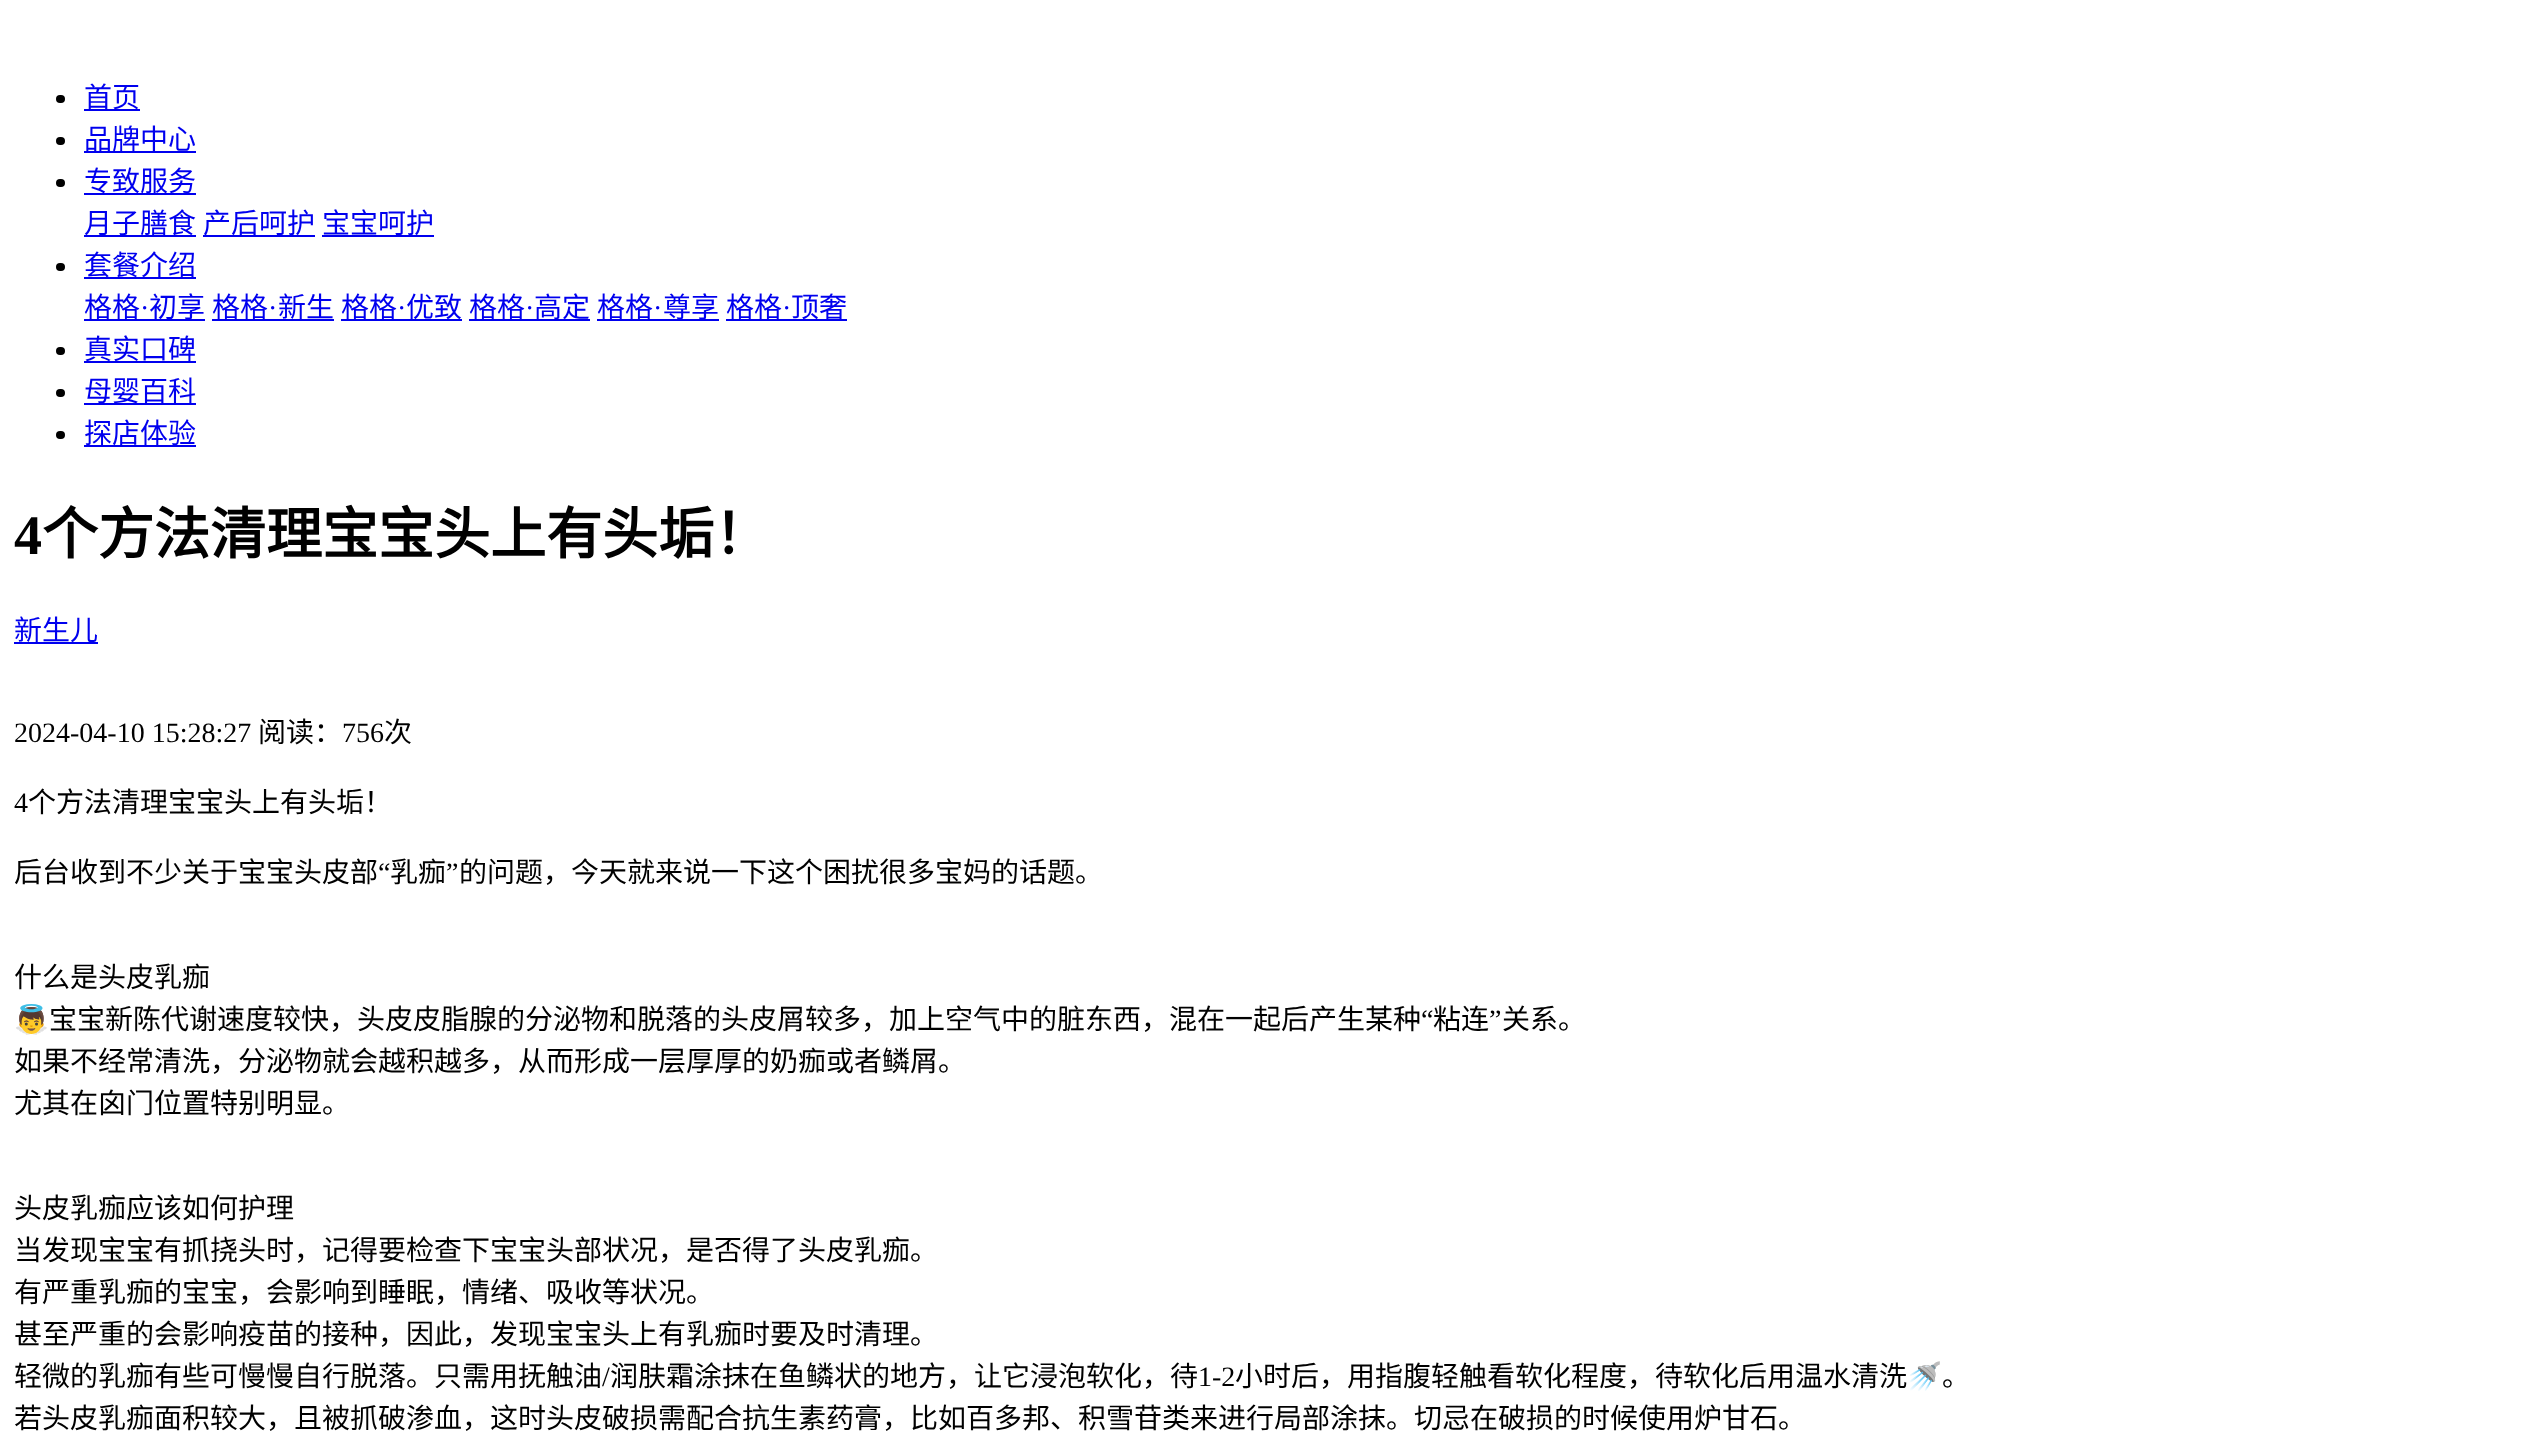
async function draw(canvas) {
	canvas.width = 2524;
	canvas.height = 1451;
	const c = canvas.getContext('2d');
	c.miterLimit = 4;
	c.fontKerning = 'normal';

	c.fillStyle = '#fff';
	c.fillRect(0, 0, 2524, 1451);
	c.fillStyle = '#000';
	c.beginPath();
	c.roundRect(56, 95, 9, 8, 4);
	c.fill();
	c.fillStyle = '#00e';
	c.fillRect(84, 109, 56, 2);
	c.font = '28px Noto Sans CJK SC';
	c.fillText('首页', 84, 107);
	c.fillStyle = '#000';
	c.beginPath();
	c.roundRect(56, 137, 9, 8, 4);
	c.fill();
	c.fillStyle = '#00e';
	c.fillRect(84, 151, 112, 2);
	c.fillText('品牌中心', 84, 149);
	c.fillStyle = '#000';
	c.beginPath();
	c.roundRect(56, 179, 9, 8, 4);
	c.fill();
	c.fillStyle = '#00e';
	c.fillRect(84, 193, 112, 2);
	c.fillText('专致服务', 84, 191);
	c.fillRect(84, 235, 112, 2);
	c.fillText('月子膳食', 84, 233);
	c.fillRect(203, 235, 112, 2);
	c.fillText('产后呵护', 203, 233);
	c.fillRect(322, 235, 112, 2);
	c.fillText('宝宝呵护', 322, 233);
	c.fillStyle = '#000';
	c.beginPath();
	c.roundRect(56, 263, 9, 8, 4);
	c.fill();
	c.fillStyle = '#00e';
	c.fillRect(84, 277, 112, 2);
	c.fillText('套餐介绍', 84, 275);
	c.fillRect(84, 319, 121, 2);
	c.fillText('格格', 84, 317);
	c.font = '28px Liberation Serif';
	c.fillText('·', 140, 317);
	c.font = '28px Noto Sans CJK SC';
	c.fillText('初享', 149, 317);
	c.fillRect(212, 319, 122, 2);
	c.fillText('格格', 212, 317);
	c.font = '28px Liberation Serif';
	c.fillText('·', 268, 317);
	c.font = '28px Noto Sans CJK SC';
	c.fillText('新生', 278, 317);
	c.fillRect(341, 319, 121, 2);
	c.fillText('格格', 341, 317);
	c.font = '28px Liberation Serif';
	c.fillText('·', 397, 317);
	c.font = '28px Noto Sans CJK SC';
	c.fillText('优致', 406, 317);
	c.fillRect(469, 319, 121, 2);
	c.fillText('格格', 469, 317);
	c.font = '28px Liberation Serif';
	c.fillText('·', 525, 317);
	c.font = '28px Noto Sans CJK SC';
	c.fillText('高定', 534, 317);
	c.fillRect(597, 319, 122, 2);
	c.fillText('格格', 597, 317);
	c.font = '28px Liberation Serif';
	c.fillText('·', 653, 317);
	c.font = '28px Noto Sans CJK SC';
	c.fillText('尊享', 663, 317);
	c.fillRect(726, 319, 121, 2);
	c.fillText('格格', 726, 317);
	c.font = '28px Liberation Serif';
	c.fillText('·', 782, 317);
	c.font = '28px Noto Sans CJK SC';
	c.fillText('顶奢', 791, 317);
	c.fillStyle = '#000';
	c.beginPath();
	c.roundRect(56, 347, 9, 8, 4);
	c.fill();
	c.fillStyle = '#00e';
	c.fillRect(84, 361, 112, 2);
	c.fillText('真实口碑', 84, 359);
	c.fillStyle = '#000';
	c.beginPath();
	c.roundRect(56, 389, 9, 8, 4);
	c.fill();
	c.fillStyle = '#00e';
	c.fillRect(84, 403, 112, 2);
	c.fillText('母婴百科', 84, 401);
	c.fillStyle = '#000';
	c.beginPath();
	c.roundRect(56, 431, 9, 8, 4);
	c.fill();
	c.fillStyle = '#00e';
	c.fillRect(84, 445, 112, 2);
	c.fillText('探店体验', 84, 443);
	c.font = 'bold 56px Liberation Serif';
	c.fillStyle = '#000';
	c.fillText('4', 14, 554);
	c.font = 'bold 56px Noto Sans CJK SC';
	c.fillText('个方法清理宝宝头上有头垢！', 42, 554);
	c.fillStyle = '#00e';
	c.fillRect(14, 642, 84, 2);
	c.font = '28px Noto Sans CJK SC';
	c.fillText('新生儿', 14, 640);
	c.font = '28px Liberation Serif';
	c.fillStyle = '#000';
	c.fillText('2024-04-10 15:28:27', 14, 742);
	c.font = '28px Noto Sans CJK SC';
	c.fillText('阅读：', 258, 742);
	c.font = '28px Liberation Serif';
	c.fillText('756', 342, 742);
	c.font = '28px Noto Sans CJK SC';
	c.fillText('次', 384, 742);
	c.font = '28px Liberation Serif';
	c.fillText('4', 14, 812);
	c.font = '28px Noto Sans CJK SC';
	c.fillText('个方法清理宝宝头上有头垢！', 28, 812);
	c.fillText('后台收到不少关于宝宝头皮部', 14, 882);
	c.font = '28px Liberation Serif';
	c.fillText('“', 378, 882);
	c.font = '28px Noto Sans CJK SC';
	c.fillText('乳痂', 390, 882);
	c.font = '28px Liberation Serif';
	c.fillText('”', 446, 882);
	c.font = '28px Noto Sans CJK SC';
	c.fillText('的问题，今天就来说一下这个困扰很多宝妈的话题。', 459, 882);
	c.fillText('什么是头皮乳痂', 14, 987);
	c.font = '28px Noto Color Emoji';
	c.fillText('👼', 14, 1029);
	c.font = '28px Noto Sans CJK SC';
	c.fillText('宝宝新陈代谢速度较快，头皮皮脂腺的分泌物和脱落的头皮屑较多，加上空气中的脏东西，混在一起后产生某种', 49, 1029);
	c.font = '28px Liberation Serif';
	c.fillText('“', 1421, 1029);
	c.font = '28px Noto Sans CJK SC';
	c.fillText('粘连', 1433, 1029);
	c.font = '28px Liberation Serif';
	c.fillText('”', 1489, 1029);
	c.font = '28px Noto Sans CJK SC';
	for (const [text, x, y] of [
		['关系。', 1502, 1029],
		['如果不经常清洗，分泌物就会越积越多，从而形成一层厚厚的奶痂或者鳞屑。', 14, 1071],
		['尤其在囟门位置特别明显。', 14, 1113],
		['头皮乳痂应该如何护理', 14, 1218],
		['当发现宝宝有抓挠头时，记得要检查下宝宝头部状况，是否得了头皮乳痂。', 14, 1260],
		['有严重乳痂的宝宝，会影响到睡眠，情绪、吸收等状况。', 14, 1302],
		['甚至严重的会影响疫苗的接种，因此，发现宝宝头上有乳痂时要及时清理。', 14, 1344],
		['轻微的乳痂有些可慢慢自行脱落。只需用抚触油', 14, 1386],
	]) {
		c.fillText(text, x, y);
	}
	c.font = '28px Liberation Serif';
	c.fillText('/', 602, 1386);
	c.font = '28px Noto Sans CJK SC';
	c.fillText('润肤霜涂抹在鱼鳞状的地方，让它浸泡软化，待', 610, 1386);
	c.font = '28px Liberation Serif';
	c.fillText('1-2', 1198, 1386);
	c.font = '28px Noto Sans CJK SC';
	c.fillText('小时后，用指腹轻触看软化程度，待软化后用温水清洗', 1235, 1386);
	c.font = '28px Noto Color Emoji';
	c.fillText('🚿', 1907, 1386);
	c.font = '28px Noto Sans CJK SC';
	c.fillText('。', 1942, 1386);
	c.fillText('若头皮乳痂面积较大，且被抓破渗血，这时头皮破损需配合抗生素药膏，比如百多邦、积雪苷类来进行局部涂抹。切忌在破损的时候使用炉甘石。', 14, 1428);
}

draw(document.querySelector('canvas'));
